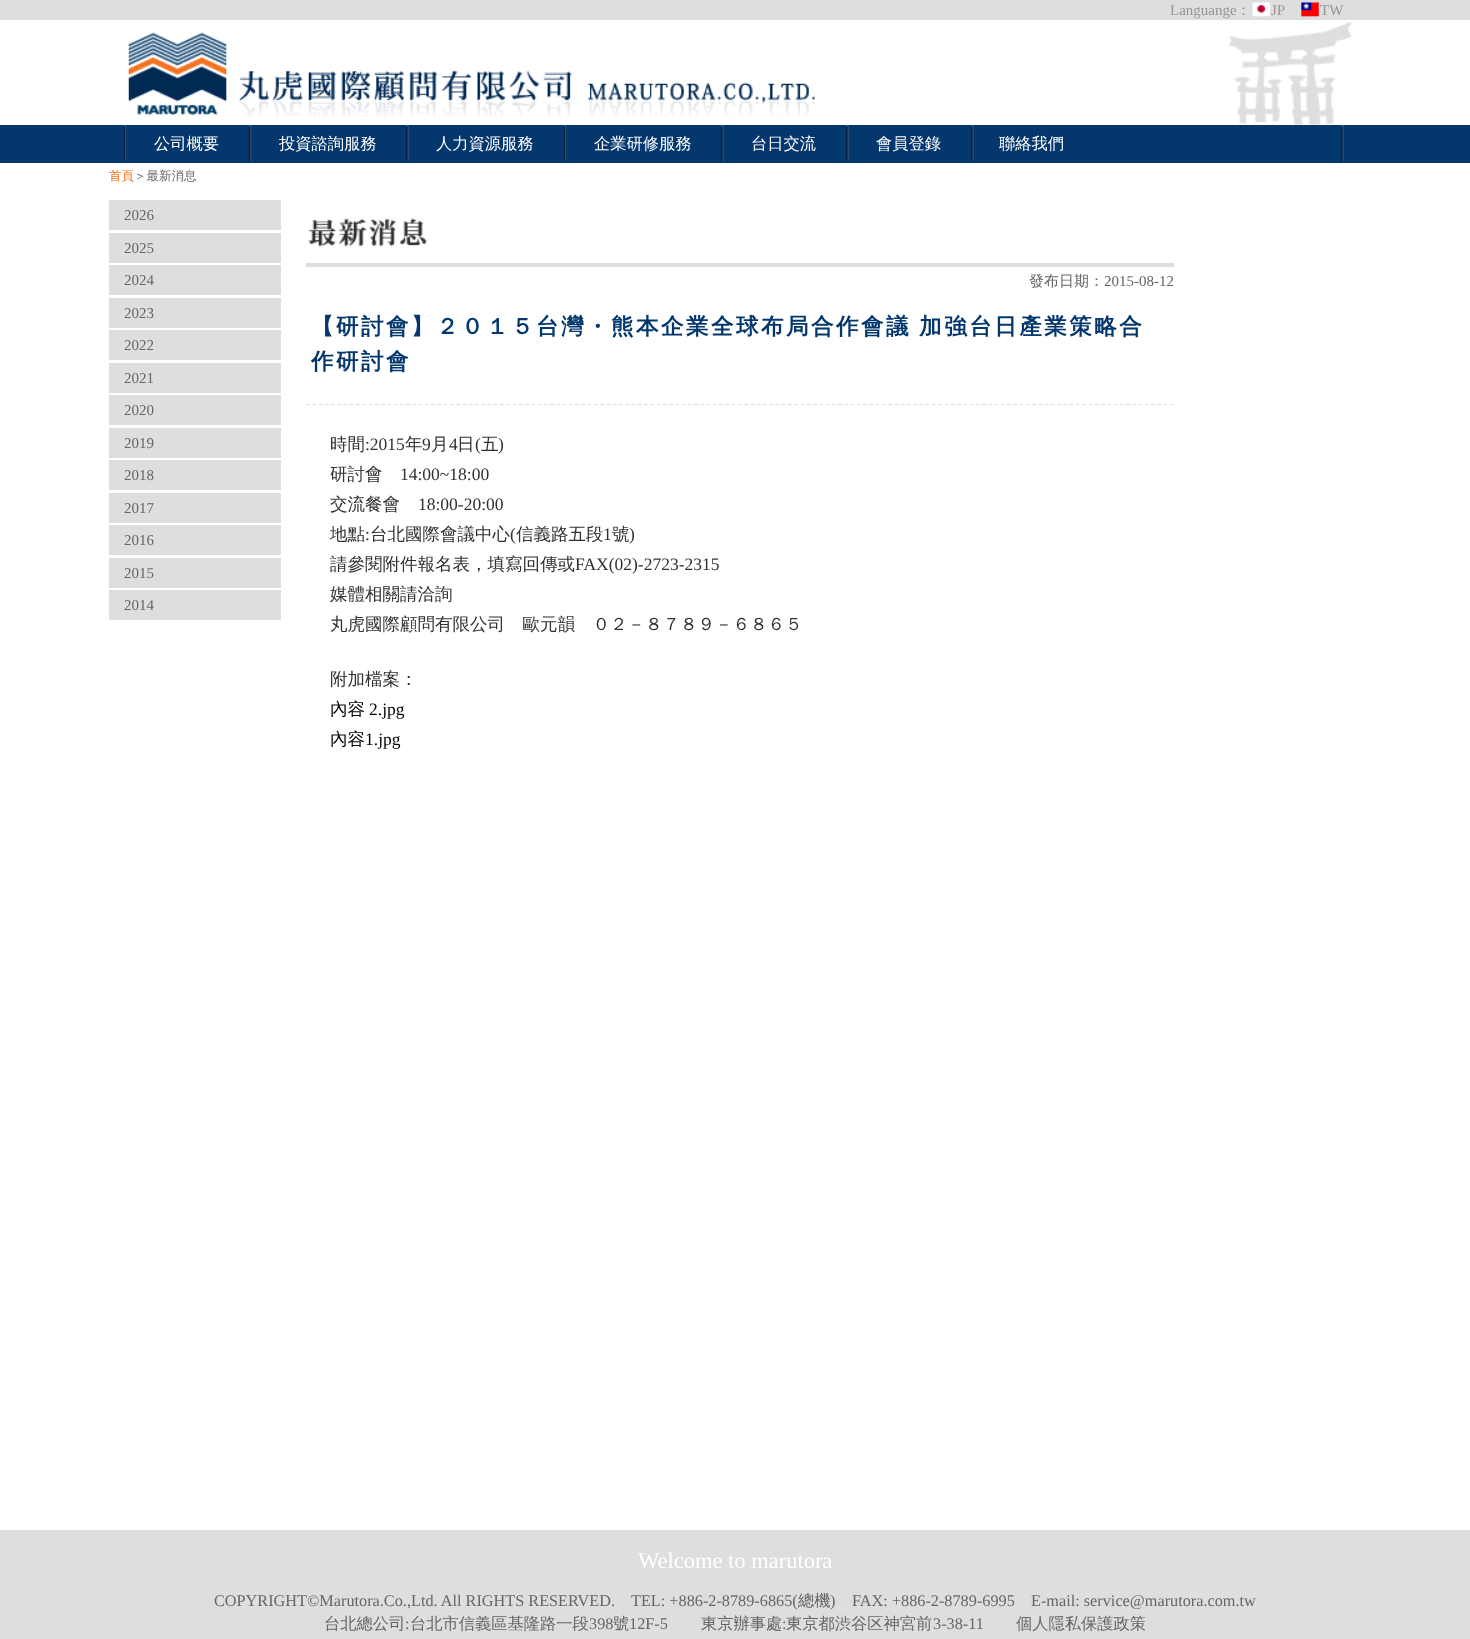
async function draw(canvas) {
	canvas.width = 1470;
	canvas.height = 1639;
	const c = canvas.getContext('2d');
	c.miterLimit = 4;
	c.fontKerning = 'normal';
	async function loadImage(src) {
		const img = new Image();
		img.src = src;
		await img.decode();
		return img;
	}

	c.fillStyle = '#fff';
	c.fillRect(0, 0, 1470, 1639);
	c.fillStyle = '#dedede';
	c.fillRect(0, 0, 1470, 20);
	c.font = '15px Liberation Serif';
	c.fillStyle = '#959595';
	c.fillText('Languange', 1170, 15);
	c.font = '500 15px WenQuanYi Zen Hei';
	c.fillText('：', 1236, 15);
	c.drawImage(await loadImage('img1.png'), 1252, 2, 19, 15);
	c.font = '15px Liberation Serif';
	c.fillText('JP', 1271, 15);
	c.drawImage(await loadImage('img2.png'), 1301, 2, 18, 15);
	c.fillText('TW', 1320, 15);
	c.drawImage(await loadImage('img3.png'), 128, 32, 688, 85);
	c.drawImage(await loadImage('img4.png'), 1228, 21, 124, 104);
	c.fillStyle = '#03376d';
	c.fillRect(0, 125, 1470, 38);
	c.drawImage(await loadImage('img5.png'), 123, 125, 4, 37);
	c.font = '500 16.25px WenQuanYi Zen Hei';
	c.fillStyle = '#fff';
	c.fillText('公司概要', 154, 149);
	c.drawImage(await loadImage('img5.png'), 248, 125, 4, 37);
	c.fillText('投資諮詢服務', 279, 149);
	c.drawImage(await loadImage('img6.png'), 406, 125, 3, 37);
	c.fillText('人力資源服務', 436, 149);
	c.drawImage(await loadImage('img5.png'), 563, 125, 4, 37);
	c.fillText('企業研修服務', 594, 149);
	c.drawImage(await loadImage('img6.png'), 721, 125, 3, 37);
	c.fillText('台日交流', 751, 149);
	c.drawImage(await loadImage('img6.png'), 846, 125, 3, 37);
	c.fillText('會員登錄', 876, 149);
	c.drawImage(await loadImage('img6.png'), 971, 125, 3, 37);
	c.fillText('聯絡我們', 999, 149);
	c.drawImage(await loadImage('img6.png'), 1341, 125, 3, 37);
	c.font = '500 12.5px WenQuanYi Zen Hei';
	c.fillStyle = '#f47320';
	c.fillText('首頁', 109, 180);
	c.fillStyle = '#666';
	c.fillText('＞最新消息', 134, 180);
	c.fillStyle = '#dedede';
	c.fillRect(109, 200, 172, 30);
	c.font = '15px Liberation Serif';
	c.fillStyle = '#666';
	c.fillText('2026', 124, 220);
	c.fillStyle = '#dedede';
	c.fillRect(109, 233, 172, 30);
	c.fillStyle = '#666';
	c.fillText('2025', 124, 253);
	c.fillStyle = '#dedede';
	c.fillRect(109, 265, 172, 30);
	c.fillStyle = '#666';
	c.fillText('2024', 124, 285);
	c.fillStyle = '#dedede';
	c.fillRect(109, 298, 172, 30);
	c.fillStyle = '#666';
	c.fillText('2023', 124, 318);
	c.fillStyle = '#dedede';
	c.fillRect(109, 330, 172, 30);
	c.fillStyle = '#666';
	c.fillText('2022', 124, 350);
	c.fillStyle = '#dedede';
	c.fillRect(109, 363, 172, 30);
	c.fillStyle = '#666';
	c.fillText('2021', 124, 383);
	c.fillStyle = '#dedede';
	c.fillRect(109, 395, 172, 30);
	c.fillStyle = '#666';
	c.fillText('2020', 124, 415);
	c.fillStyle = '#dedede';
	c.fillRect(109, 428, 172, 30);
	c.fillStyle = '#666';
	c.fillText('2019', 124, 448);
	c.fillStyle = '#dedede';
	c.fillRect(109, 460, 172, 30);
	c.fillStyle = '#666';
	c.fillText('2018', 124, 480);
	c.fillStyle = '#dedede';
	c.fillRect(109, 493, 172, 30);
	c.fillStyle = '#666';
	c.fillText('2017', 124, 513);
	c.fillStyle = '#dedede';
	c.fillRect(109, 525, 172, 30);
	c.fillStyle = '#666';
	c.fillText('2016', 124, 545);
	c.fillStyle = '#dedede';
	c.fillRect(109, 558, 172, 30);
	c.fillStyle = '#666';
	c.fillText('2015', 124, 578);
	c.fillStyle = '#dedede';
	c.fillRect(109, 590, 172, 30);
	c.fillStyle = '#666';
	c.fillText('2014', 124, 610);
	c.drawImage(await loadImage('img7.png'), 308, 218, 119, 29);
	c.fillStyle = '#dedede';
	c.fillRect(306, 263, 868, 4);
	c.font = '500 15px WenQuanYi Zen Hei';
	c.fillStyle = '#666';
	c.fillText('發布日期：', 1029, 286);
	c.font = '15px Liberation Serif';
	c.fillText('2015-08-12', 1104, 286);
	c.beginPath();
	c.moveTo(306, 404.5);
	c.lineTo(1174, 404.5);
	c.strokeStyle = '#dedede';
	c.lineWidth = 1.2;
	c.setLineDash([3.75, 2.51]);
	c.stroke();
	c.letterSpacing = '2.5px';
	c.wordSpacing = '-1px';
	c.font = 'bold 22.5px WenQuanYi Zen Hei';
	c.fillStyle = '#03376d';
	c.fillText('【研討會】２０１５台灣・熊本企業全球布局合作會議 加強台日產業策略合', 311, 334);
	c.wordSpacing = '0px';
	c.fillText('作研討會', 311, 369);
	c.letterSpacing = '0px';
	c.font = '500 17.5px WenQuanYi Zen Hei';
	c.fillStyle = '#303030';
	c.fillText('時間', 330, 450);
	c.font = '17.5px Liberation Serif';
	c.fillText(':2015', 365, 450);
	c.font = '500 17.5px WenQuanYi Zen Hei';
	c.fillText('年', 405, 450);
	c.font = '17.5px Liberation Serif';
	c.fillText('9', 422, 450);
	c.font = '500 17.5px WenQuanYi Zen Hei';
	c.fillText('月', 431, 450);
	c.font = '17.5px Liberation Serif';
	c.fillText('4', 449, 450);
	c.font = '500 17.5px WenQuanYi Zen Hei';
	c.fillText('日', 457, 450);
	c.font = '17.5px Liberation Serif';
	c.fillText('(', 475, 450);
	c.font = '500 17.5px WenQuanYi Zen Hei';
	c.fillText('五', 481, 450);
	c.font = '17.5px Liberation Serif';
	c.fillText(')', 498, 450);
	c.font = '500 17.5px WenQuanYi Zen Hei';
	c.fillText('研討會', 330, 480);
	c.font = '17.5px Liberation Serif';
	c.fillText('14:00~18:00', 400, 480);
	c.font = '500 17.5px WenQuanYi Zen Hei';
	c.fillText('交流餐會', 330, 510);
	c.font = '17.5px Liberation Serif';
	c.fillText('18:00-20:00', 418, 510);
	c.font = '500 17.5px WenQuanYi Zen Hei';
	c.fillText('地點', 330, 540);
	c.font = '17.5px Liberation Serif';
	c.fillText(':', 365, 540);
	c.font = '500 17.5px WenQuanYi Zen Hei';
	c.fillText('台北國際會議中心', 370, 540);
	c.font = '17.5px Liberation Serif';
	c.fillText('(', 510, 540);
	c.font = '500 17.5px WenQuanYi Zen Hei';
	c.fillText('信義路五段', 516, 540);
	c.font = '17.5px Liberation Serif';
	c.fillText('1', 603, 540);
	c.font = '500 17.5px WenQuanYi Zen Hei';
	c.fillText('號', 612, 540);
	c.font = '17.5px Liberation Serif';
	c.fillText(')', 629, 540);
	c.font = '500 17.5px WenQuanYi Zen Hei';
	c.fillText('請參閱附件報名表，填寫回傳或', 330, 570);
	c.font = '17.5px Liberation Serif';
	c.fillText('FAX(02)-2723-2315', 575, 570);
	c.font = '500 17.5px WenQuanYi Zen Hei';
	for (const [text, x, y] of [
		['媒體相關請洽詢', 330, 600],
		['丸虎國際顧問有限公司　歐元韻　０２－８７８９－６８６５', 330, 630],
		['附加檔案：', 330, 685],
	]) {
		c.fillText(text, x, y);
	}
	c.fillStyle = '#000';
	c.fillText('內容', 330, 715);
	c.font = '17.5px Liberation Serif';
	c.fillText('2.jpg', 369, 715);
	c.font = '500 17.5px WenQuanYi Zen Hei';
	c.fillText('內容', 330, 745);
	c.font = '17.5px Liberation Serif';
	c.fillText('1.jpg', 365, 745);
	c.fillStyle = '#dedede';
	c.fillRect(0, 1530, 1470, 109);
	c.font = '22.5px Liberation Serif';
	c.fillStyle = '#fff';
	c.fillText('Welcome to marutora', 638, 1568);
	c.font = '16.25px Liberation Serif';
	c.fillStyle = '#666';
	c.fillText('COPYRIGHT©Marutora.Co.,Ltd. All RIGHTS RESERVED.', 214, 1606);
	c.fillText('TEL: +886-2-8789-6865(', 631, 1606);
	c.font = '500 16.25px WenQuanYi Zen Hei';
	c.fillText('總機', 798, 1606);
	c.font = '16.25px Liberation Serif';
	for (const [text, x, y] of [
		[')', 830, 1606],
		['FAX: +886-2-8789-6995', 852, 1606],
		['E-mail: service@marutora.com.tw', 1031, 1606],
	]) {
		c.fillText(text, x, y);
	}
	c.font = '500 16.25px WenQuanYi Zen Hei';
	c.fillText('台北總公司', 324, 1629);
	c.font = '16.25px Liberation Serif';
	c.fillText(':', 405, 1629);
	c.font = '500 16.25px WenQuanYi Zen Hei';
	c.fillText('台北市信義區基隆路一段', 410, 1629);
	c.font = '16.25px Liberation Serif';
	c.fillText('398', 589, 1629);
	c.font = '500 16.25px WenQuanYi Zen Hei';
	c.fillText('號', 613, 1629);
	c.font = '16.25px Liberation Serif';
	c.fillText('12F-5', 629, 1629);
	c.font = '500 16.25px WenQuanYi Zen Hei';
	c.fillText('東京辦事處', 701, 1629);
	c.font = '16.25px Liberation Serif';
	c.fillText(':', 782, 1629);
	c.font = '500 16.25px WenQuanYi Zen Hei';
	c.fillText('東京都渋谷区神宮前', 786, 1629);
	c.font = '16.25px Liberation Serif';
	c.fillText('3-38-11', 933, 1629);
	c.font = '500 16.25px WenQuanYi Zen Hei';
	c.fillText('個人隱私保護政策', 1016, 1629);
}

draw(document.querySelector('canvas'));
